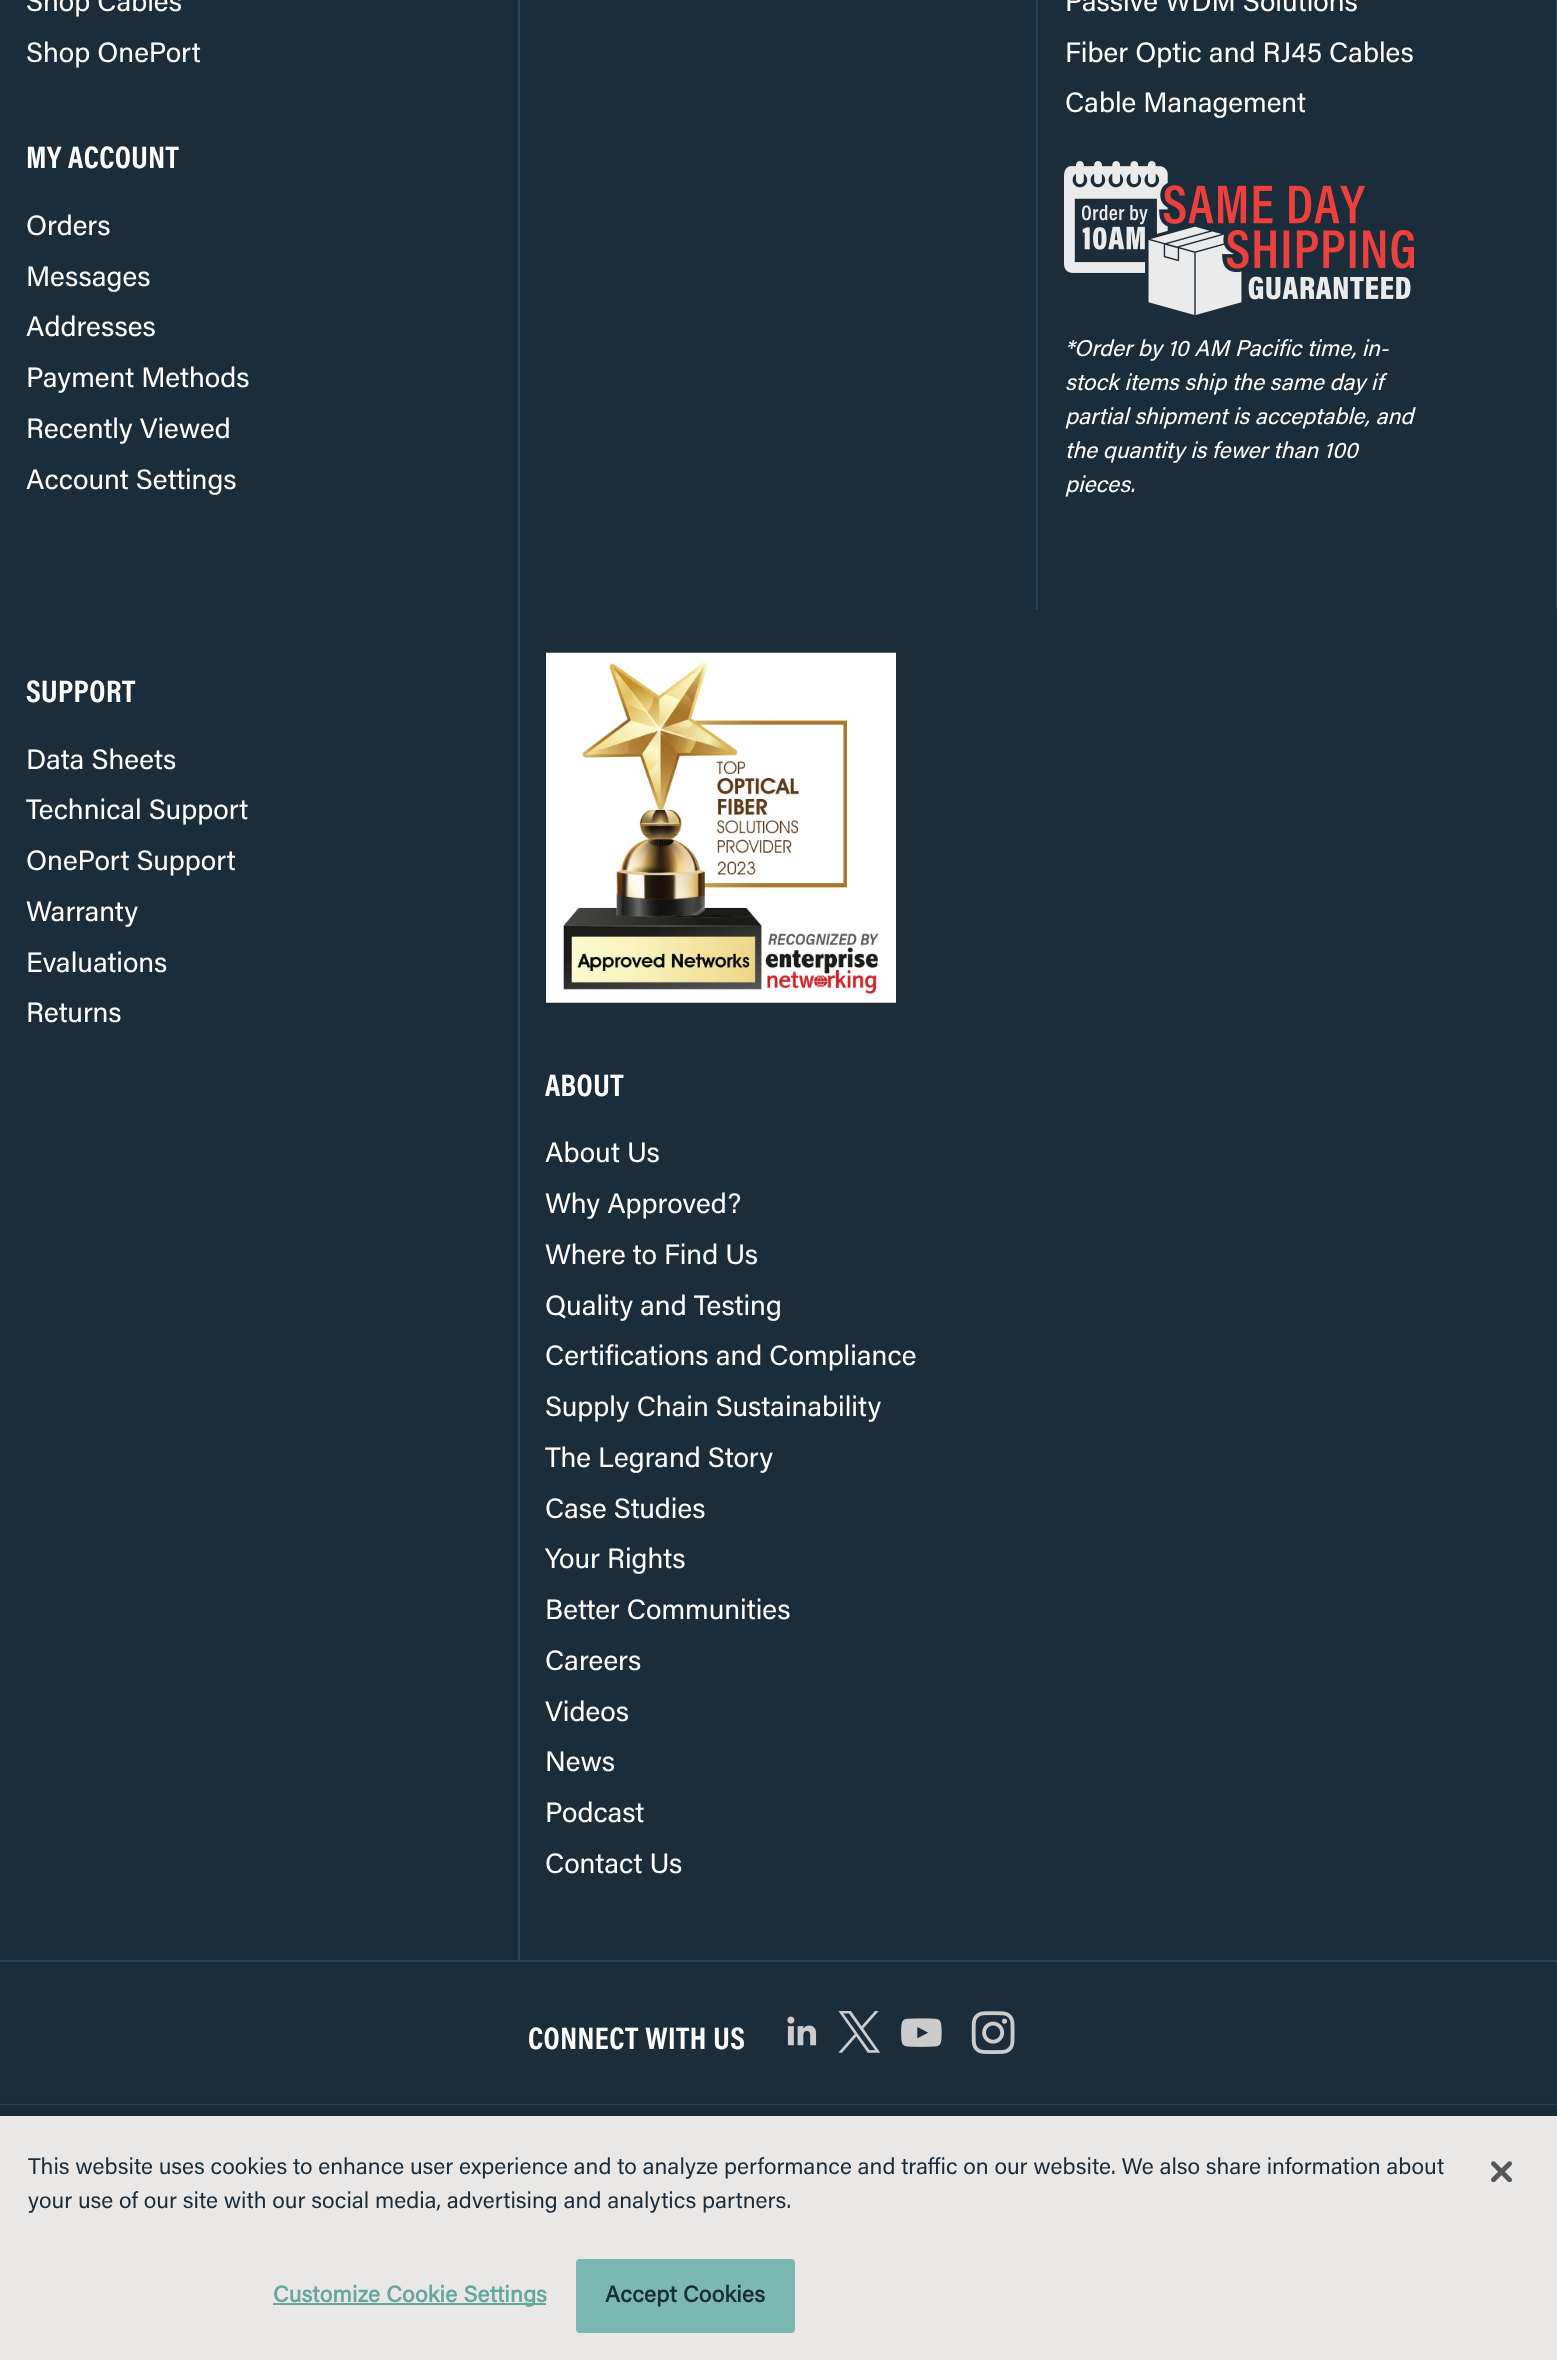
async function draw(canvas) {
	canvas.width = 1557;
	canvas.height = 2360;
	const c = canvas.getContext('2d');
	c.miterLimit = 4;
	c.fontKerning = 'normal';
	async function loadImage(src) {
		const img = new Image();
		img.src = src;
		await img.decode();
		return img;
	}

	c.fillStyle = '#1b2d3a';
	c.fillRect(0, 0, 1557, 2360);
	c.fillStyle = '#284559';
	c.fillRect(0, 1960, 1557, 2);
	c.fillRect(518, 0, 2, 1960);
	c.font = '28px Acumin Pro';
	c.fillStyle = '#fff';
	c.fillText('Shop Cables', 26, 11);
	c.fillText('Shop OnePort', 26, 62);
	c.letterSpacing = '0.5px';
	c.font = 'bold 31.5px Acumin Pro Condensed';
	c.fillText('MY ACCOUNT', 26, 168);
	c.letterSpacing = '0px';
	c.font = '28px Acumin Pro';
	for (const [text, x, y] of [
		['Orders', 26, 235],
		['Messages', 26, 286],
		['Addresses', 26, 336],
		['Payment Methods', 26, 387],
		['Recently Viewed', 26, 438],
		['Account Settings', 26, 489],
	]) {
		c.fillText(text, x, y);
	}
	c.fillStyle = '#284559';
	c.fillRect(1036, 0, 2, 609);
	c.fillRect(1556, 0, 1, 609);
	c.fillStyle = '#fff';
	for (const [text, x, y] of [
		['Passive WDM Solutions', 1065, 11],
		['Fiber Optic and RJ45 Cables', 1065, 62],
		['Cable Management', 1065, 112],
	]) {
		c.fillText(text, x, y);
	}
	c.drawImage(await loadImage('img1.png'), 1064, 161, 350, 154);
	c.font = 'italic 22.75px Acumin Pro';
	for (const [text, x, y] of [
		['*Order by 10 AM Pacific time, in-', 1065, 356],
		['stock items ship the same day if', 1065, 390],
		['partial shipment is acceptable, and', 1065, 424],
		['the quantity is fewer than 100', 1065, 458],
		['pieces.', 1065, 492],
	]) {
		c.fillText(text, x, y);
	}
	c.letterSpacing = '0.5px';
	c.font = 'bold 31.5px Acumin Pro Condensed';
	c.fillText('SUPPORT', 26, 702);
	c.letterSpacing = '0px';
	c.font = '28px Acumin Pro';
	for (const [text, x, y] of [
		['Data Sheets', 26, 769],
		['Technical Support', 26, 819],
		['OnePort Support', 26, 870],
		['Warranty', 26, 921],
		['Evaluations', 26, 972],
		['Returns', 26, 1022],
	]) {
		c.fillText(text, x, y);
	}
	c.drawImage(await loadImage('img2.png'), 546, 652, 350, 351);
	c.letterSpacing = '0.5px';
	c.font = 'bold 31.5px Acumin Pro Condensed';
	c.fillText('ABOUT', 545, 1096);
	c.letterSpacing = '0px';
	c.font = '28px Acumin Pro';
	for (const [text, x, y] of [
		['About Us', 545, 1162],
		['Why Approved?', 545, 1213],
		['Where to Find Us', 545, 1264],
		['Quality and Testing', 545, 1315],
		['Certifications and Compliance', 545, 1365],
		['Supply Chain Sustainability', 545, 1416],
		['The Legrand Story', 545, 1467],
		['Case Studies', 545, 1518],
		['Your Rights', 545, 1568],
		['Better Communities', 545, 1619],
		['Careers', 545, 1670],
		['Videos', 545, 1721],
		['News', 545, 1771],
		['Podcast', 545, 1822],
		['Contact Us', 545, 1873],
	]) {
		c.fillText(text, x, y);
	}
	c.fillStyle = '#284559';
	c.fillRect(0, 2104, 1557, 1);
	c.letterSpacing = '0.5px';
	c.font = 'bold 31.5px Acumin Pro Condensed';
	c.fillStyle = '#fff';
	c.fillText('CONNECT WITH US', 528, 2049);
	c.drawImage(await loadImage('img3.png'), 787, 2016, 30, 30);
	c.drawImage(await loadImage('img4.png'), 838, 2011, 42, 42);
	c.drawImage(await loadImage('img5.png'), 901, 2018, 41, 29);
	c.drawImage(await loadImage('img6.png'), 971, 2011, 44, 43);
	c.fillStyle = '#00000033';
	c.filter = 'blur(16px)';
	c.beginPath();
	c.rect(0, 2116, 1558, 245);
	c.fill();
	c.filter = 'none';
	c.fillStyle = '#eae7e7';
	c.fillRect(0, 2116, 1557, 244);
	c.letterSpacing = '0px';
	c.font = '22.75px Acumin Pro';
	c.fillStyle = '#1b2d3a';
	c.fillText('This website uses cookies to enhance user experience and to analyze performance and traffic on our website. We also share information about', 28, 2174);
	c.fillText('your use of our site with our social media, advertising and analytics partners.', 28, 2208);
	c.fillStyle = '#66a79e';
	c.fillRect(273, 2303, 273, 2);
	c.letterSpacing = '0.25px';
	c.font = 'bold 22.75px Acumin Pro';
	c.fillText('Customize Cookie Settings', 273, 2302);
	c.fillStyle = '#7ab8b1';
	c.beginPath();
	c.roundRect(577, 2260, 217, 72, 3);
	c.fill();
	c.strokeStyle = '#7ab8b1';
	c.lineWidth = 2;
	c.stroke();
	c.fillStyle = '#1b2d3a';
	c.fillText('Accept Cookies', 605, 2302);
	c.drawImage(await loadImage('img7.png'), 1491, 2161, 21, 21);
}

draw(document.querySelector('canvas'));
